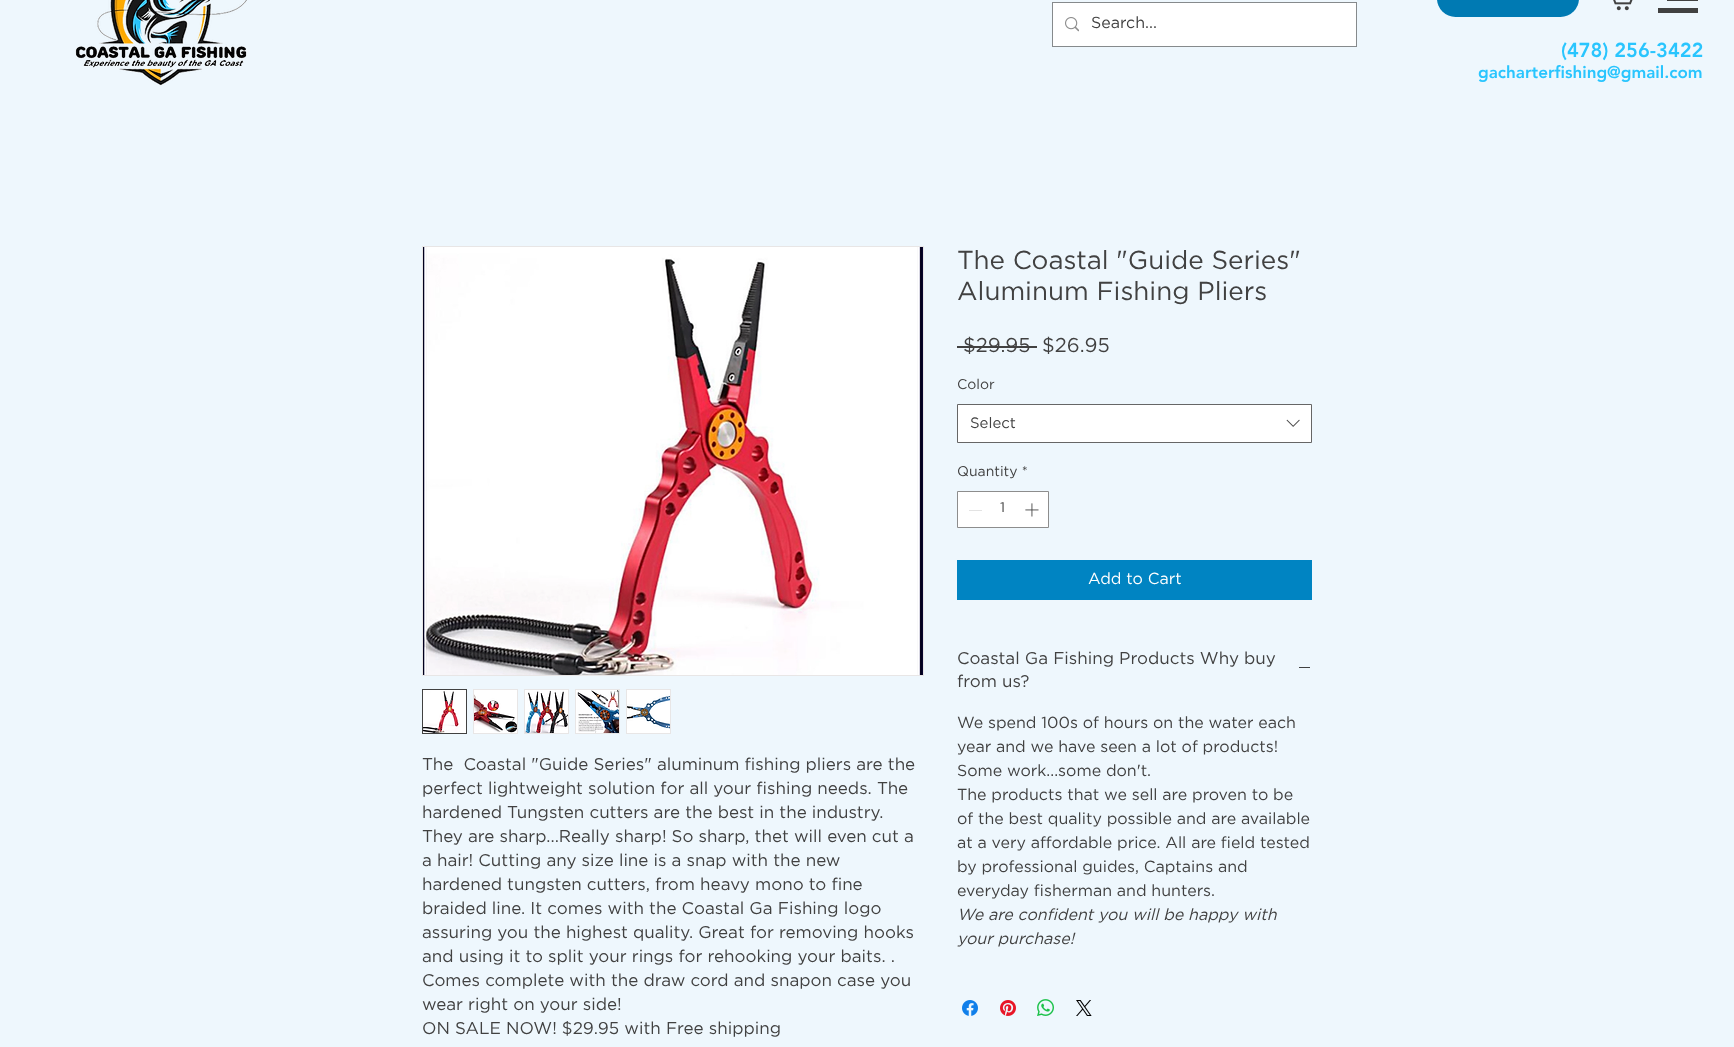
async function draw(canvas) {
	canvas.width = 1734;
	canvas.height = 1047;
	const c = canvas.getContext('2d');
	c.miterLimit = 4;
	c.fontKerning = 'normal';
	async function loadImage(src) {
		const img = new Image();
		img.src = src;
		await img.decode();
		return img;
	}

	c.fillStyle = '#eef7fd';
	c.fillRect(0, 0, 1734, 1047);
	c.strokeStyle = '#868a8c';
	c.strokeRect(1052.5, 2.5, 304, 44);
	c.fillStyle = '#fff';
	c.fillRect(1053, 3, 303, 43);
	c.drawImage(await loadImage('img1.png'), 1065, 17, 14, 15);
	c.font = '16px Gotham';
	c.fillStyle = '#414141';
	c.fillText('Search...', 1091, 28);
	c.drawImage(await loadImage('img2.png'), 75, 0, 172, 86);
	c.fillStyle = '#007ab3';
	c.beginPath();
	c.roundRect(1437, -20, 142, 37, 20);
	c.fill();
	c.drawImage(await loadImage('img3.png'), 1613, 0, 20, 11);
	c.fillStyle = '#414141';
	c.fillRect(1658, 8, 40, 5);
	c.fillRect(1667, 0, 31, 1);
	c.font = '900 20px "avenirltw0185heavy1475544"';
	c.fillStyle = '#29c5fe';
	c.fillText('(478) 256-3422', 1561, 57);
	c.font = '900 17px "avenirltw0185heavy1475544"';
	c.fillText('gacharterfishing@gmail.com', 1478, 78);
	c.strokeStyle = '#e8e6e6';
	c.strokeRect(422.5, 246.5, 501, 429);
	c.drawImage(await loadImage('img4.png'), 423, 247, 500, 428);
	c.strokeStyle = '#414141';
	c.strokeRect(422.5, 689.5, 44, 44);
	c.drawImage(await loadImage('img5.png'), 423, 690, 43, 43);
	c.strokeStyle = '#e8e6e6';
	c.strokeRect(473.5, 689.5, 44, 44);
	c.drawImage(await loadImage('img6.png'), 474, 690, 43, 43);
	c.strokeRect(524.5, 689.5, 44, 44);
	c.drawImage(await loadImage('img7.png'), 525, 690, 43, 43);
	c.strokeRect(575.5, 689.5, 44, 44);
	c.drawImage(await loadImage('img8.png'), 576, 690, 43, 43);
	c.strokeRect(626.5, 689.5, 44, 44);
	c.drawImage(await loadImage('img9.png'), 627, 690, 43, 43);
	c.font = '17px Gotham';
	c.fillStyle = '#414141';
	for (const [text, x, y] of [
		['The  Coastal "Guide Series" aluminum fishing pliers are the', 422, 770],
		['perfect lightweight solution for all your fishing needs. The', 422, 794],
		['hardened Tungsten cutters are the best in the industry.', 422, 818],
		['They are sharp...Really sharp! So sharp, thet will even cut a', 422, 842],
		['a hair! Cutting any size line is a snap with the new', 422, 866],
		['hardened tungsten cutters, from heavy mono to fine', 422, 890],
		['braided line. It comes with the Coastal Ga Fishing logo', 422, 914],
		['assuring you the highest quality. Great for removing hooks', 422, 938],
		['and using it to split your rings for rehooking your baits. .', 422, 962],
		['Comes complete with the draw cord and snapon case you', 422, 986],
		['wear right on your side!', 422, 1010],
		['ON SALE NOW! $29.95 with Free shipping', 422, 1034],
	]) {
		c.fillText(text, x, y);
	}
	c.font = '26px Gotham';
	c.fillText('The Coastal "Guide Series"', 957, 269);
	c.fillText('Aluminum Fishing Pliers', 957, 300);
	c.font = '20px Gotham';
	c.fillText('$29.95', 963, 352);
	c.fillRect(957, 346, 80, 2);
	c.fillText('$26.95', 1042, 352);
	c.font = '14px Gotham';
	c.fillText('Color', 957, 389);
	c.fillStyle = '#fff';
	c.beginPath();
	c.rect(957.5, 404.5, 354, 38);
	c.fill();
	c.strokeStyle = '#666';
	c.stroke();
	c.font = '15px Gotham';
	c.fillStyle = '#414141';
	c.fillText('Select', 970, 428);
	c.drawImage(await loadImage('img10.png'), 1286, 419, 14, 8);
	c.font = '14px Gotham';
	c.fillText('Quantity *', 957, 476);
	c.fillStyle = '#fff';
	c.beginPath();
	c.rect(957.5, 491.5, 91, 36);
	c.fill();
	c.strokeStyle = '#8d8d8d';
	c.stroke();
	c.fillStyle = '#e3e3e3';
	c.fillRect(969, 510, 13, 1);
	c.fillStyle = '#414141';
	c.fillText('1', 1000, 512);
	c.drawImage(await loadImage('img11.png'), 1025, 503, 14, 14);
	c.fillStyle = '#0084c2';
	c.fillRect(957, 560, 355, 40);
	c.font = '16px Gotham';
	c.fillStyle = '#fff';
	c.fillText('Add to Cart', 1088, 584);
	c.font = '17px Gotham';
	c.fillStyle = '#414141';
	c.fillText('Coastal Ga Fishing Products Why buy', 957, 664);
	c.fillText('from us?', 957, 687);
	c.fillRect(1299, 667, 11, 1);
	c.font = '16px Gotham';
	for (const [text, x, y] of [
		['We spend 100s of hours on the water each', 957, 728],
		['year and we have seen a lot of products!', 957, 752],
		['Some work...some don\'t.', 957, 776],
		['The products that we sell are proven to be', 957, 800],
		['of the best quality possible and are available', 957, 824],
		['at a very affordable price. All are field tested', 957, 848],
		['by professional guides, Captains and', 957, 872],
		['everyday fisherman and hunters.', 957, 896],
	]) {
		c.fillText(text, x, y);
	}
	c.font = 'italic 16px Gotham';
	c.fillText('We are confident you will be happy with', 957, 920);
	c.fillText('your purchase!', 957, 944);
	c.drawImage(await loadImage('img12.png'), 962, 1000, 16, 16);
	c.drawImage(await loadImage('img13.png'), 1000, 1000, 16, 16);
	c.drawImage(await loadImage('img14.png'), 1037, 999, 17, 17);
	c.drawImage(await loadImage('img15.png'), 1076, 1000, 16, 16);
}

draw(document.querySelector('canvas'));
